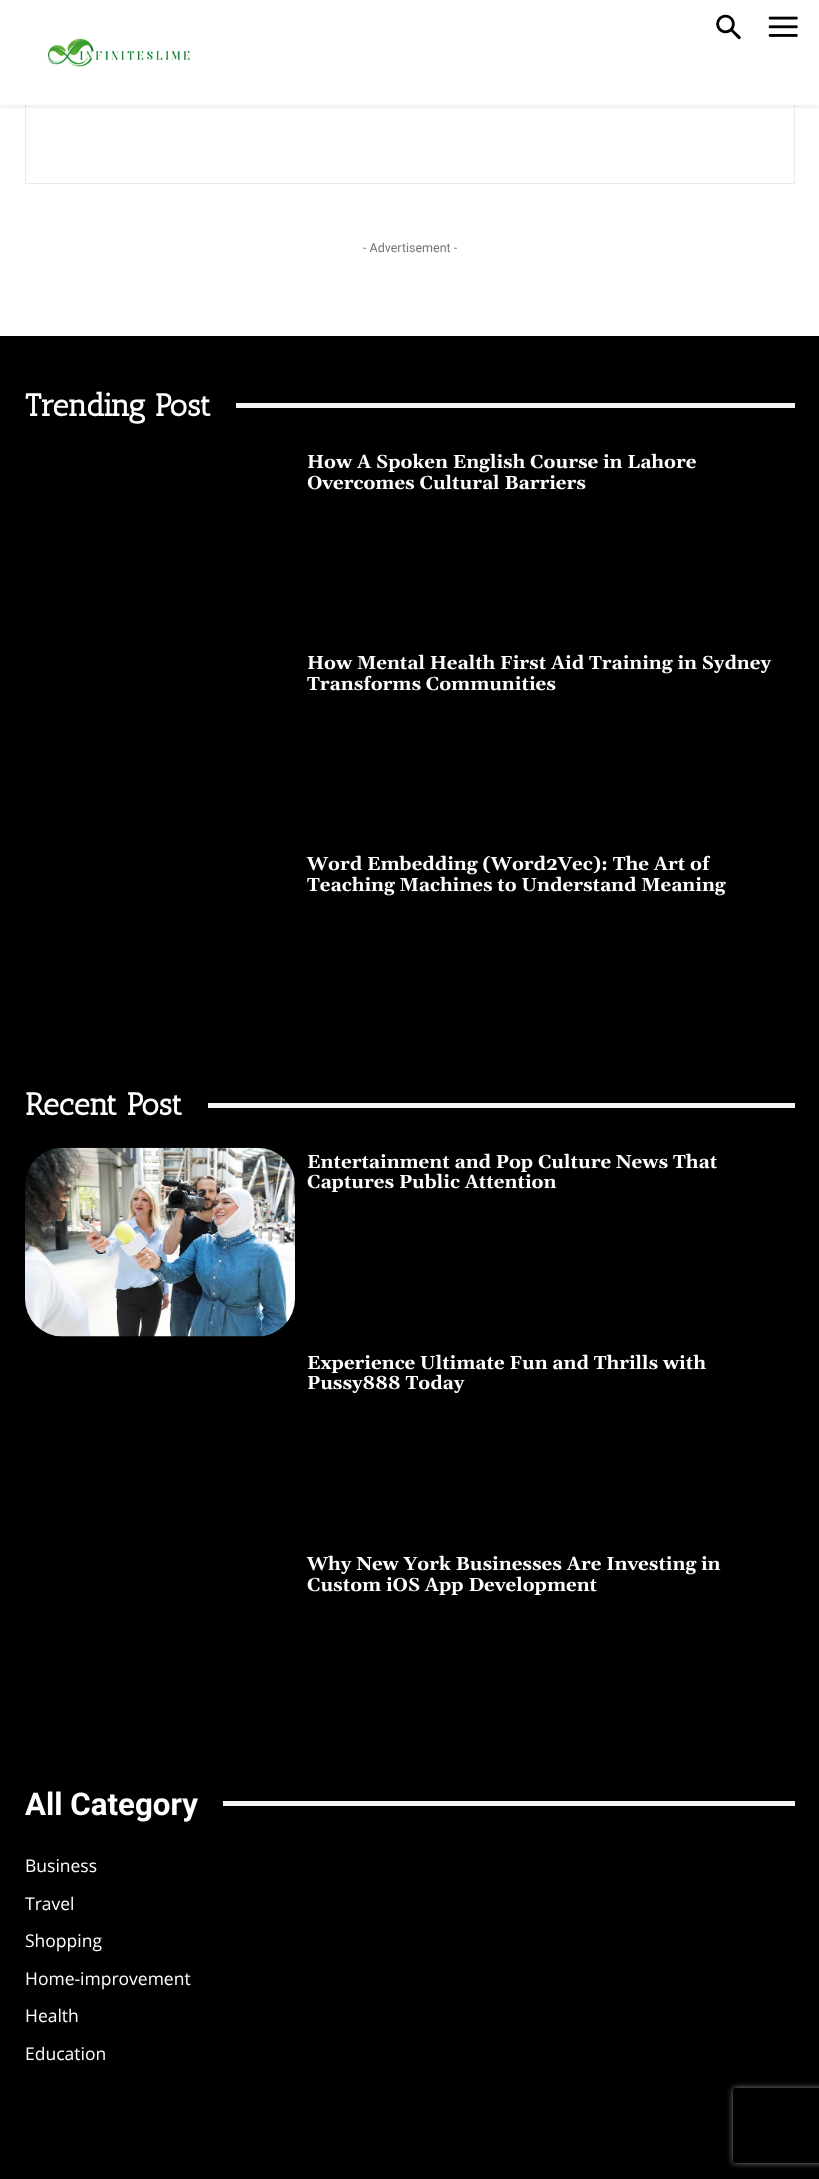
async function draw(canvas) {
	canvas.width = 819;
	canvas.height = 2179;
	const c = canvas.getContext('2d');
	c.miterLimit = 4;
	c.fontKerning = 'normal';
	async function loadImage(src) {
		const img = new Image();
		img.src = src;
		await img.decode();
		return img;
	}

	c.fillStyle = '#fff';
	c.fillRect(0, 0, 819, 2179);
	c.strokeStyle = '#eaeaea';
	c.strokeRect(25.5, -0.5, 769, 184);
	c.fillRect(25, 0, 770, 105);
	c.drawImage(await loadImage('img1.png'), 716, 14, 25, 26);
	c.drawImage(await loadImage('img2.png'), 768, 16, 30, 21);
	c.drawImage(await loadImage('img3.png'), 47, 38, 143, 29);
	c.save();
	c.beginPath();
	c.rect(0, 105, 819, 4);
	c.clip();
	c.fillStyle = '#0000000f';
	c.filter = 'blur(2.5px)';
	c.beginPath();
	c.rect(0, 3, 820, 105);
	c.fill();
	c.filter = 'none';
	c.restore();
	c.font = '12.5px Roboto';
	c.fillStyle = '#767676';
	c.fillText('- Advertisement -', 363, 252);
	c.fillStyle = '#000';
	c.fillRect(0, 336, 819, 1843);
	c.font = 'bold 31.25px Antic Slab';
	c.fillStyle = '#fff';
	c.fillText('Trending Post', 25, 416);
	c.fillStyle = '#f5f5f5';
	c.fillRect(236, 403, 559, 5);
	c.font = 'bold 18.75px Gelasio';
	c.fillStyle = '#fff';
	for (const [text, x, y] of [
		['How A Spoken English Course in Lahore', 307, 468],
		['Overcomes Cultural Barriers', 307, 489],
		['How Mental Health First Aid Training in Sydney', 307, 669],
		['Transforms Communities', 307, 690],
		['Word Embedding (Word2Vec): The Art of', 307, 870],
		['Teaching Machines to Understand Meaning', 307, 891],
	]) {
		c.fillText(text, x, y);
	}
	c.font = 'bold 31.25px Antic Slab';
	c.fillText('Recent Post', 25, 1115);
	c.fillStyle = '#f5f5f5';
	c.fillRect(208, 1103, 587, 5);
	c.drawImage(await loadImage('img4.png'), 25, 1147, 270, 190);
	c.font = 'bold 18.75px Gelasio';
	c.fillStyle = '#fff';
	for (const [text, x, y] of [
		['Entertainment and Pop Culture News That', 307, 1168],
		['Captures Public Attention', 307, 1188],
		['Experience Ultimate Fun and Thrills with', 307, 1369],
		['Pussy888 Today', 307, 1389],
		['Why New York Businesses Are Investing in', 307, 1570],
		['Custom iOS App Development', 307, 1591],
	]) {
		c.fillText(text, x, y);
	}
	c.font = 'bold 31.25px Roboto';
	c.fillText('All Category', 25, 1815);
	c.fillStyle = '#f5f5f5';
	c.fillRect(223, 1801, 572, 5);
	c.font = '17.5px Open Sans';
	c.fillStyle = '#fff';
	for (const [text, x, y] of [
		['Business', 25, 1872],
		['Travel', 25, 1910],
		['Shopping', 25, 1947],
		['Home-improvement', 25, 1985],
		['Health', 25, 2022],
		['Education', 25, 2060],
	]) {
		c.fillText(text, x, y);
	}
	c.save();
	c.beginPath();
	c.moveTo(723, 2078);
	c.lineTo(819, 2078);
	c.lineTo(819, 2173);
	c.lineTo(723, 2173);
	c.closePath();
	c.moveTo(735.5, 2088);
	c.lineTo(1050.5, 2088);
	c.bezierCurveTo(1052, 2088, 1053, 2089, 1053, 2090.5);
	c.lineTo(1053, 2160.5);
	c.bezierCurveTo(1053, 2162, 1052, 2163, 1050.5, 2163);
	c.lineTo(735.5, 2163);
	c.bezierCurveTo(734, 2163, 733, 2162, 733, 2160.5);
	c.lineTo(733, 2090.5);
	c.bezierCurveTo(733, 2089, 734, 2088, 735.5, 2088);
	c.closePath();
	c.clip('evenodd');
	c.fillStyle = '#808080';
	c.filter = 'blur(3px)';
	c.beginPath();
	c.roundRect(733, 2088, 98, 75, 2.5);
	c.fill();
	c.filter = 'none';
	c.restore();
}

draw(document.querySelector('canvas'));
